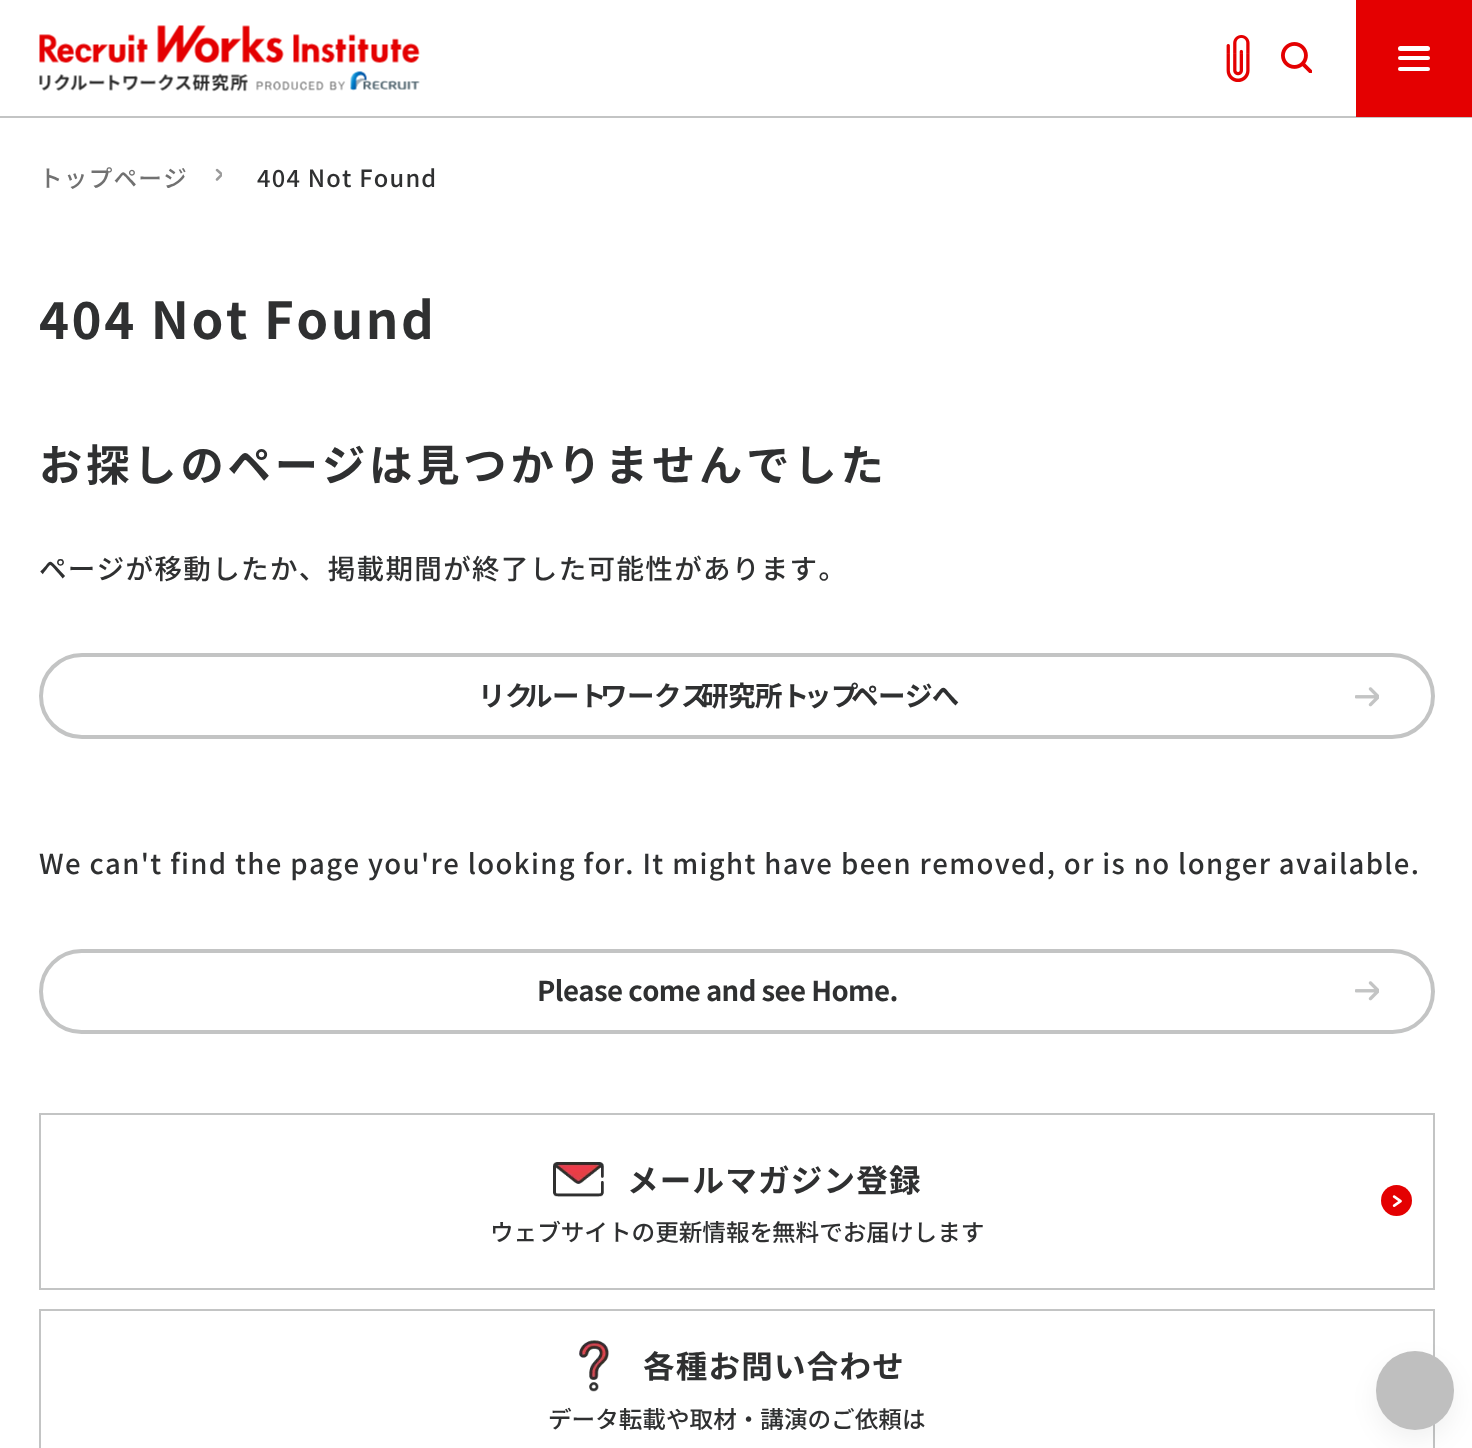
async function draw(canvas) {
	canvas.width = 1472;
	canvas.height = 1448;
	const c = canvas.getContext('2d');
	c.miterLimit = 4;
	c.fontKerning = 'none';
	async function loadImage(src) {
		const img = new Image();
		img.src = src;
		await img.decode();
		return img;
	}

	c.fillStyle = '#fff';
	c.fillRect(0, 0, 1472, 1448);
	c.fillStyle = '#c3c4c4';
	c.fillRect(0, 116, 1472, 2);
	c.drawImage(await loadImage('img1.png'), 39, 25, 381, 67);
	c.drawImage(await loadImage('img2.png'), 1226, 35, 24, 41);
	c.drawImage(await loadImage('img3.png'), 1226, 53, 24, 29);
	c.drawImage(await loadImage('img4.png'), 1281, 42, 31, 31);
	c.fillStyle = '#e40001';
	c.fillRect(1356, 0, 116, 117);
	c.fillStyle = '#fff';
	c.beginPath();
	c.roundRect(1398, 46, 32, 5, 2.5);
	c.fill();
	c.beginPath();
	c.roundRect(1398, 56, 32, 4, 2);
	c.fill();
	c.beginPath();
	c.roundRect(1398, 67, 32, 4, 2);
	c.fill();
	c.letterSpacing = '1.25px';
	c.font = '500 23.6px Noto Sans JP';
	c.fillStyle = '#717171';
	c.fillText('トップページ', 39, 187);
	c.save();
	c.beginPath();
	c.rect(215, 168, 7, 14);
	c.clip();
	c.beginPath();
	c.moveTo(217, 170);
	c.lineTo(222, 174.5);
	c.lineTo(217, 179.5);
	c.strokeStyle = '#9b9b9b';
	c.lineWidth = 2.5;
	c.lineCap = 'round';
	c.lineJoin = 'round';
	c.stroke();
	c.restore();
	c.fillStyle = '#2f3031';
	c.fillText('404 Not Found', 257, 187);
	c.letterSpacing = '2.5px';
	c.font = 'bold 51px Noto Sans JP';
	c.fillText('404 Not Found', 39, 339);
	c.letterSpacing = '3.9px';
	c.font = 'bold 43.25px Noto Sans JP';
	c.fillText('お探しのページは見つかりませんでした', 39, 481);
	c.letterSpacing = '1.37px';
	c.font = '500 27.5px Noto Sans JP';
	c.fillText('ページが移動したか、掲載期間が終了した可能性があります。', 39, 579);
	c.beginPath();
	c.roundRect(41, 655, 1392, 82, 41);
	c.strokeStyle = '#c3c4c4';
	c.lineWidth = 4;
	c.stroke();
	c.letterSpacing = '-0.55px';
	c.font = 'bold 27.5px Noto Sans JP';
	c.fillText('リク', 478, 706);
	c.fillText('ルート', 525, 706);
	c.fillText('ワークス', 600, 706);
	c.fillText('研究所ト', 701, 706);
	c.fillText('ップ', 804, 706);
	c.fillText('ページへ', 851, 706);
	c.drawImage(await loadImage('img5.png'), 1355, 687, 24, 20);
	c.letterSpacing = '1.37px';
	c.font = '500 27.5px Noto Sans JP';
	c.fillText('We can\'t find the page you\'re looking for. It might have', 39, 874);
	c.fillText('been removed, or is no longer available.', 841, 874);
	c.beginPath();
	c.roundRect(41, 951, 1392, 81, 40.5);
	c.stroke();
	c.letterSpacing = '-0.55px';
	c.font = 'bold 27.5px Noto Sans JP';
	c.fillText('Please come and see Home.', 537, 1001);
	c.drawImage(await loadImage('img5.png'), 1355, 981, 24, 20);
	c.lineWidth = 2;
	c.strokeRect(40, 1114, 1394, 175);
	c.drawImage(await loadImage('img6.png'), 553, 1162, 51, 35);
	c.letterSpacing = '1.25px';
	c.font = 'bold 31.5px Noto Sans JP';
	c.fillText('メールマガジン登録', 627, 1192);
	c.fillStyle = '#e40001';
	c.beginPath();
	c.arc(1396.5, 1200.5, 15.5, 0, 2 * Math.PI);
	c.fill();
	c.drawImage(await loadImage('img7.png'), 1392, 1195, 10, 12);
	c.letterSpacing = '0px';
	c.font = '500 23.6px Noto Sans JP';
	c.fillStyle = '#2f3031';
	c.fillText('ウェブサイトの更新情報を', 490, 1241);
	c.fillText('無料でお届けします', 772, 1241);
	c.strokeRect(40, 1310, 1394, 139);
	c.drawImage(await loadImage('img8.png'), 579, 1340, 30, 52);
	c.letterSpacing = '1.25px';
	c.font = 'bold 31.5px Noto Sans JP';
	c.fillText('各種お問い合わせ', 643, 1378);
	c.letterSpacing = '0px';
	c.font = '500 23.6px Noto Sans JP';
	c.fillText('データ転載や取材・講演のご依頼は', 548, 1428);
	c.fillStyle = '#0000000f';
	c.filter = 'blur(13px)';
	c.beginPath();
	c.roundRect(1376, 1362, 78, 78, 39);
	c.fill();
	c.filter = 'none';
	c.fillStyle = '#bfbfbf';
	c.beginPath();
	c.roundRect(1376, 1351, 78, 79, 39);
	c.fill();
}

draw(document.querySelector('canvas'));
